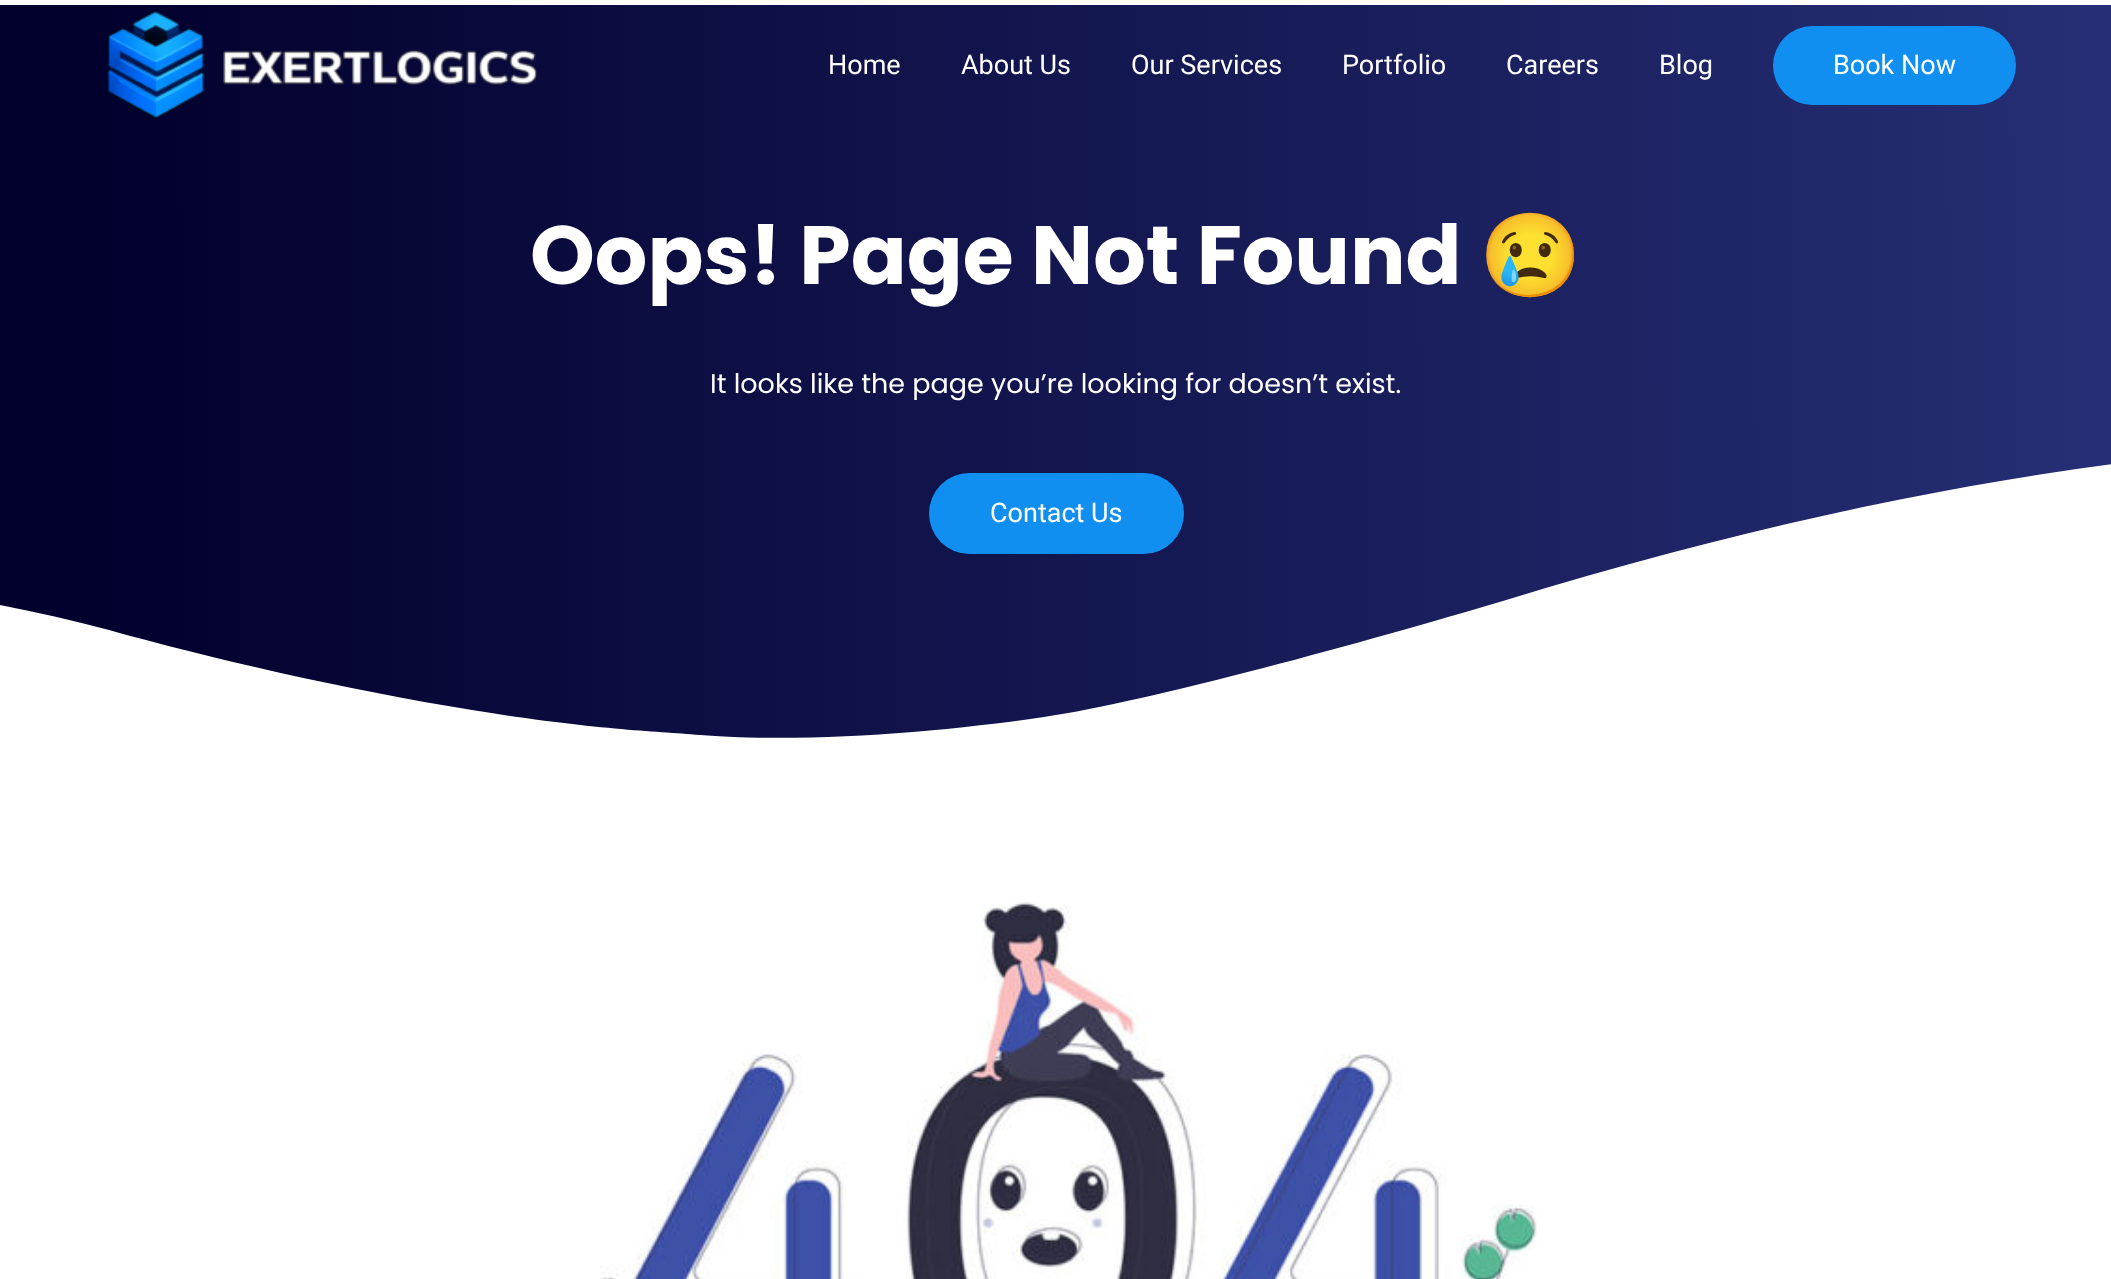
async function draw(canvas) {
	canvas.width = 2111;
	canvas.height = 1279;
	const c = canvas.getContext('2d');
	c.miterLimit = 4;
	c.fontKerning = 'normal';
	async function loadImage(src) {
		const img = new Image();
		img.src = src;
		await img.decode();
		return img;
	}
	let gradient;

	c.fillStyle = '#fff';
	c.fillRect(0, 0, 2111, 1279);
	gradient = c.createLinearGradient(0, 380, 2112, 379);
	gradient.addColorStop(0.05, '#02002d');
	gradient.addColorStop(1, '#262f75');
	c.fillStyle = gradient;
	c.fillRect(0, 5, 2111, 733);
	c.drawImage(await loadImage('img1.png'), 106, 10, 432, 109);
	c.font = '27px Roboto';
	c.fillStyle = '#fff';
	for (const [text, x, y] of [
		['Home', 828, 74],
		['About Us', 961, 74],
		['Our Services', 1131, 74],
		['Portfolio', 1342, 74],
		['Careers', 1506, 74],
		['Blog', 1659, 74],
	]) {
		c.fillText(text, x, y);
	}
	c.fillStyle = '#118ff0';
	c.beginPath();
	c.roundRect(1773, 26, 243, 79, 39.5);
	c.fill();
	c.fillStyle = '#fff';
	c.fillText('Book Now', 1833, 74);
	c.font = 'bold 82.5px Poppins';
	c.fillText('Oops! Page Not Found', 530, 284);
	c.font = 'bold 82.5px Noto Color Emoji';
	c.fillText('😢', 1479, 284);
	c.font = '27px Poppins';
	c.fillText('It looks like the page you’re looking for doesn’t exist.', 710, 393);
	c.beginPath();
	c.moveTo(700, 735);
	c.bezierCurveTo(803, 743, 935, 733, 1044, 717);
	c.bezierCurveTo(1152, 701, 1368, 641, 1503, 601);
	c.bezierCurveTo(1849, 495, 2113, 455, 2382, 438);
	c.bezierCurveTo(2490, 431, 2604, 427, 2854, 446);
	c.bezierCurveTo(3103, 466, 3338, 530, 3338, 530);
	c.lineTo(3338, 756);
	c.lineTo(-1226, 756);
	c.lineTo(-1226, 657);
	c.bezierCurveTo(-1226, 657, -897, 550, -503, 557);
	c.bezierCurveTo(-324, 559, -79, 579, 109, 630);
	c.bezierCurveTo(205, 657, 347, 690, 472, 710);
	c.bezierCurveTo(596, 730, 653, 731, 700, 735);
	c.closePath();
	c.fill();
	c.fillStyle = '#118ff0';
	c.beginPath();
	c.roundRect(929, 473, 255, 81, 40.5);
	c.fill();
	c.font = '27px Roboto';
	c.fillStyle = '#fff';
	c.fillText('Contact Us', 990, 522);
	c.drawImage(await loadImage('img2.png'), 600, 902, 937, 377);
}

draw(document.querySelector('canvas'));
